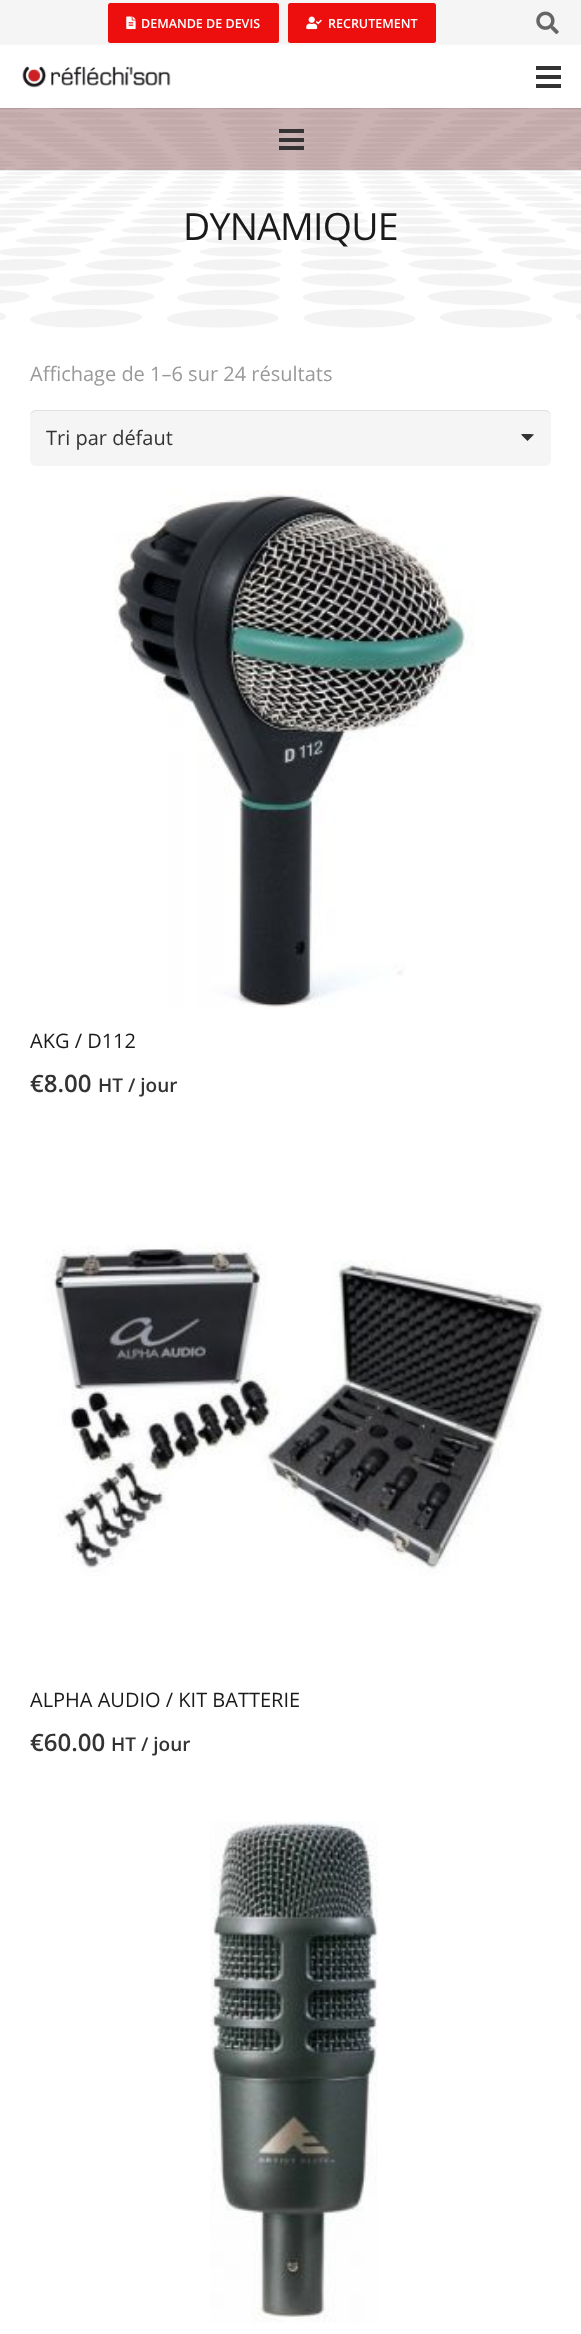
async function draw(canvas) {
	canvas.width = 581;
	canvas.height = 2334;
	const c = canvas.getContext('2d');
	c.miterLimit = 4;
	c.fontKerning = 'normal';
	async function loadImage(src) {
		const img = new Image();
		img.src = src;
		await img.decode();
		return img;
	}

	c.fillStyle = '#fff';
	c.fillRect(0, 0, 581, 2334);
	c.fillStyle = '#f5f5f5';
	c.fillRect(0, 0, 581, 45);
	c.fillStyle = '#ed0e0e';
	c.beginPath();
	c.roundRect(108, 3, 171, 40, 2.5);
	c.fill();
	c.drawImage(await loadImage('img1.png'), 126, 16, 10, 14);
	c.font = '600 12.5px Open Sans';
	c.fillStyle = '#fff';
	c.fillText('DEMANDE DE DEVIS', 141, 28);
	c.fillStyle = '#ed0e0e';
	c.beginPath();
	c.roundRect(288, 3, 148, 40, 2.5);
	c.fill();
	c.drawImage(await loadImage('img2.png'), 306, 16, 16, 14);
	c.fillStyle = '#fff';
	c.fillText('RECRUTEMENT', 328, 28);
	c.drawImage(await loadImage('img3.png'), 536, 11, 23, 23);
	c.drawImage(await loadImage('img5.png'), 0, 108, 581, 220);
	c.fillStyle = '#00000014';
	c.fillRect(0, 108, 581, 1);
	c.drawImage(await loadImage('img4.png'), 22, 66, 149, 22);
	for (const [x, y, w, h, color] of [
		[536, 75, 25, 4, '#333'],
		[536, 66, 25, 4, '#333'],
		[536, 84, 25, 4, '#333'],
		[0, 170, 581, 1, '#00000014'],
		[0, 108, 581, 62, '#59101052'],
		[279, 138, 25, 4, '#333'],
		[279, 129, 25, 4, '#333'],
		[279, 146, 25, 4, '#333'],
	]) {
		c.fillStyle = color;
		c.fillRect(x, y, w, h);
	}
	c.letterSpacing = '-0.75px';
	c.font = '37.5px Open Sans';
	c.fillStyle = '#1a1a1a';
	c.fillText('DYNAMIQUE', 183, 240);
	c.letterSpacing = '0px';
	c.font = '20px Open Sans';
	c.fillStyle = '#999';
	c.fillText('Affichage de 1–6 sur 24 résultats', 30, 381);
	c.fillStyle = '#f5f5f5';
	c.beginPath();
	c.roundRect(30, 410, 521, 56, 6);
	c.fill();
	c.fillStyle = '#e1e1e1';
	c.beginPath();
	c.moveTo(36, 411);
	c.lineTo(545, 411);
	c.bezierCurveTo(549, 411, 551, 414, 551, 417);
	c.bezierCurveTo(551, 413, 549, 410, 545, 410);
	c.lineTo(36, 410);
	c.bezierCurveTo(32, 410, 30, 413, 30, 417);
	c.bezierCurveTo(30, 414, 33, 411, 36, 411);
	c.closePath();
	c.fill();
	c.fillStyle = '#333';
	c.fillText('Tri par défaut', 46, 445);
	c.beginPath();
	c.moveTo(522.5, 434);
	c.bezierCurveTo(525, 434, 532.5, 433.5, 534, 434.5);
	c.lineTo(527.5, 441);
	c.lineTo(521, 434.5);
	c.closePath();
	c.fill();
	c.drawImage(await loadImage('img6.png'), 114, 490, 361, 519);
	c.fillStyle = '#1a1a1a';
	c.fillText('AKG / D112', 30, 1048);
	c.font = '600 24px Open Sans';
	c.fillStyle = '#333';
	c.fillText('€8.00', 30, 1092);
	c.font = '600 19px Open Sans';
	c.fillText('HT / jour', 98, 1092);
	c.drawImage(await loadImage('img7.png'), 44, 1242, 500, 334);
	c.font = '20px Open Sans';
	c.fillStyle = '#1a1a1a';
	c.fillText('ALPHA AUDIO / KIT BATTERIE', 30, 1707);
	c.font = '600 24px Open Sans';
	c.fillStyle = '#333';
	c.fillText('€60.00', 30, 1751);
	c.font = '600 19px Open Sans';
	c.fillText('HT / jour', 111, 1751);
	c.drawImage(await loadImage('img8.png'), 210, 1821, 168, 502);
}

draw(document.querySelector('canvas'));
